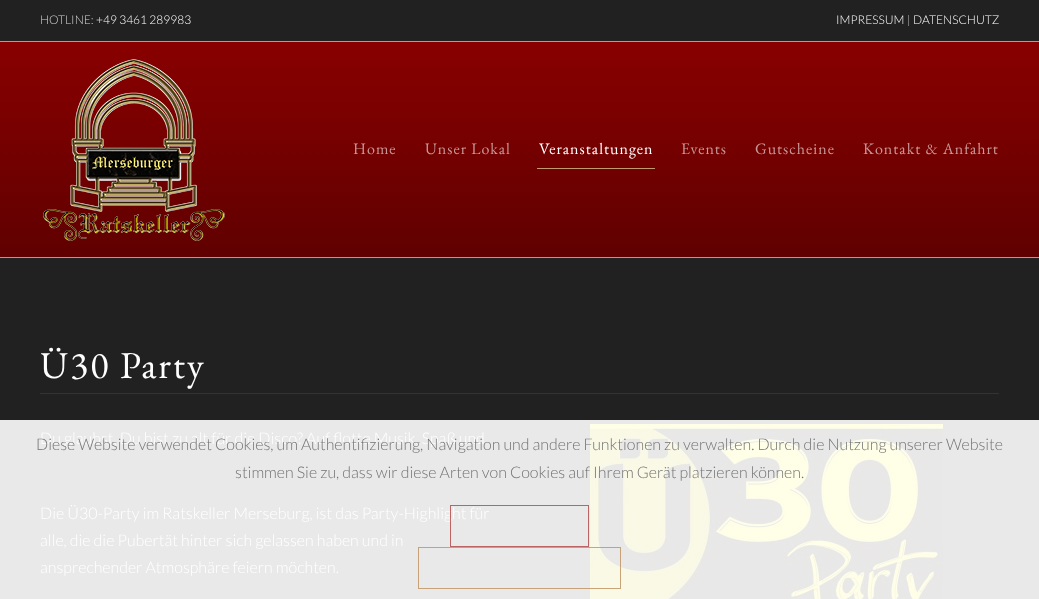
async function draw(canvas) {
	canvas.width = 1039;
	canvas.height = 599;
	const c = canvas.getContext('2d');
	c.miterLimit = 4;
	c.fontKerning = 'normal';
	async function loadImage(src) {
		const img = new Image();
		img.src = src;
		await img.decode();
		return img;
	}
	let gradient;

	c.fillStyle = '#212121';
	c.fillRect(0, 0, 1039, 599);
	c.fillStyle = '#e9e9e9';
	c.fillRect(0, 420, 1039, 179);
	c.fillStyle = '#c39a6d';
	c.fillRect(0, 41, 1039, 1);
	c.font = '300 12px Lato';
	c.fillStyle = '#d3d3d3';
	c.fillText('HOTLINE:', 40, 24);
	c.fillStyle = '#fff';
	c.fillText('+49 3461 289983', 96, 24);
	c.fillText('IMPRESSUM', 836, 24);
	c.fillStyle = '#d3d3d3';
	c.fillText('|', 907, 24);
	c.fillStyle = '#fff';
	c.fillText('DATENSCHUTZ', 913, 24);
	c.fillStyle = '#c39a6d';
	c.fillRect(0, 257, 1039, 1);
	gradient = c.createLinearGradient(520, 42, 520, 257);
	gradient.addColorStop(0, '#890000');
	gradient.addColorStop(1, '#600000');
	c.fillStyle = gradient;
	c.fillRect(0, 42, 1039, 215);
	c.drawImage(await loadImage('img1.png'), 43, 59, 182, 182);
	c.letterSpacing = '1px';
	c.font = '16px EB Garamond';
	c.fillStyle = '#c89999';
	c.fillText('Home', 353, 154);
	c.fillText('Unser Lokal', 425, 154);
	c.fillStyle = '#fff';
	c.fillText('Veranstaltungen', 539, 154);
	c.fillStyle = '#c39a6d';
	c.fillRect(537, 168, 118, 1);
	c.fillStyle = '#c89999';
	for (const [text, x, y] of [
		['Events', 681, 154],
		['Gutscheine', 755, 154],
		['Kontakt & Anfahrt', 863, 154],
	]) {
		c.fillText(text, x, y);
	}
	c.fillStyle = '#333';
	c.fillRect(40, 393, 959, 1);
	c.letterSpacing = '2px';
	c.font = '38px EB Garamond';
	c.fillStyle = '#fff';
	c.fillText('Ü30 Party', 40, 378);
	c.letterSpacing = '0px';
	c.font = '300 16px Lato';
	for (const [text, x, y] of [
		['Du glaubst, Du bist zu alt für die Disco? Auf flotte Musik, Spaß und', 40, 444],
		['Die Ü30-Party im Ratskeller Merseburg, ist das Party-Highlight für', 40, 519],
		['alle, die die Pubertät hinter sich gelassen haben und in', 40, 546],
		['ansprechender Atmosphäre feiern möchten.', 40, 573],
	]) {
		c.fillText(text, x, y);
	}
	c.drawImage(await loadImage('img2.png'), 590, 424, 353, 175);
	c.fillStyle = '#737373';
	c.fillText('Diese Website verwendet Cookies, um Authentifizierung, Navigation und andere Funktionen zu verwalten. Durch die Nutzung unserer Website', 36, 450);
	c.fillText('stimmen Sie zu, dass wir diese Arten von Cookies auf Ihrem Gerät platzieren können.', 235, 478);
	c.strokeStyle = '#b55654e6';
	c.strokeRect(450.5, 505.5, 138, 41);
	c.strokeStyle = '#c39a6de6';
	c.strokeRect(418.5, 547.5, 202, 41);
}

draw(document.querySelector('canvas'));
